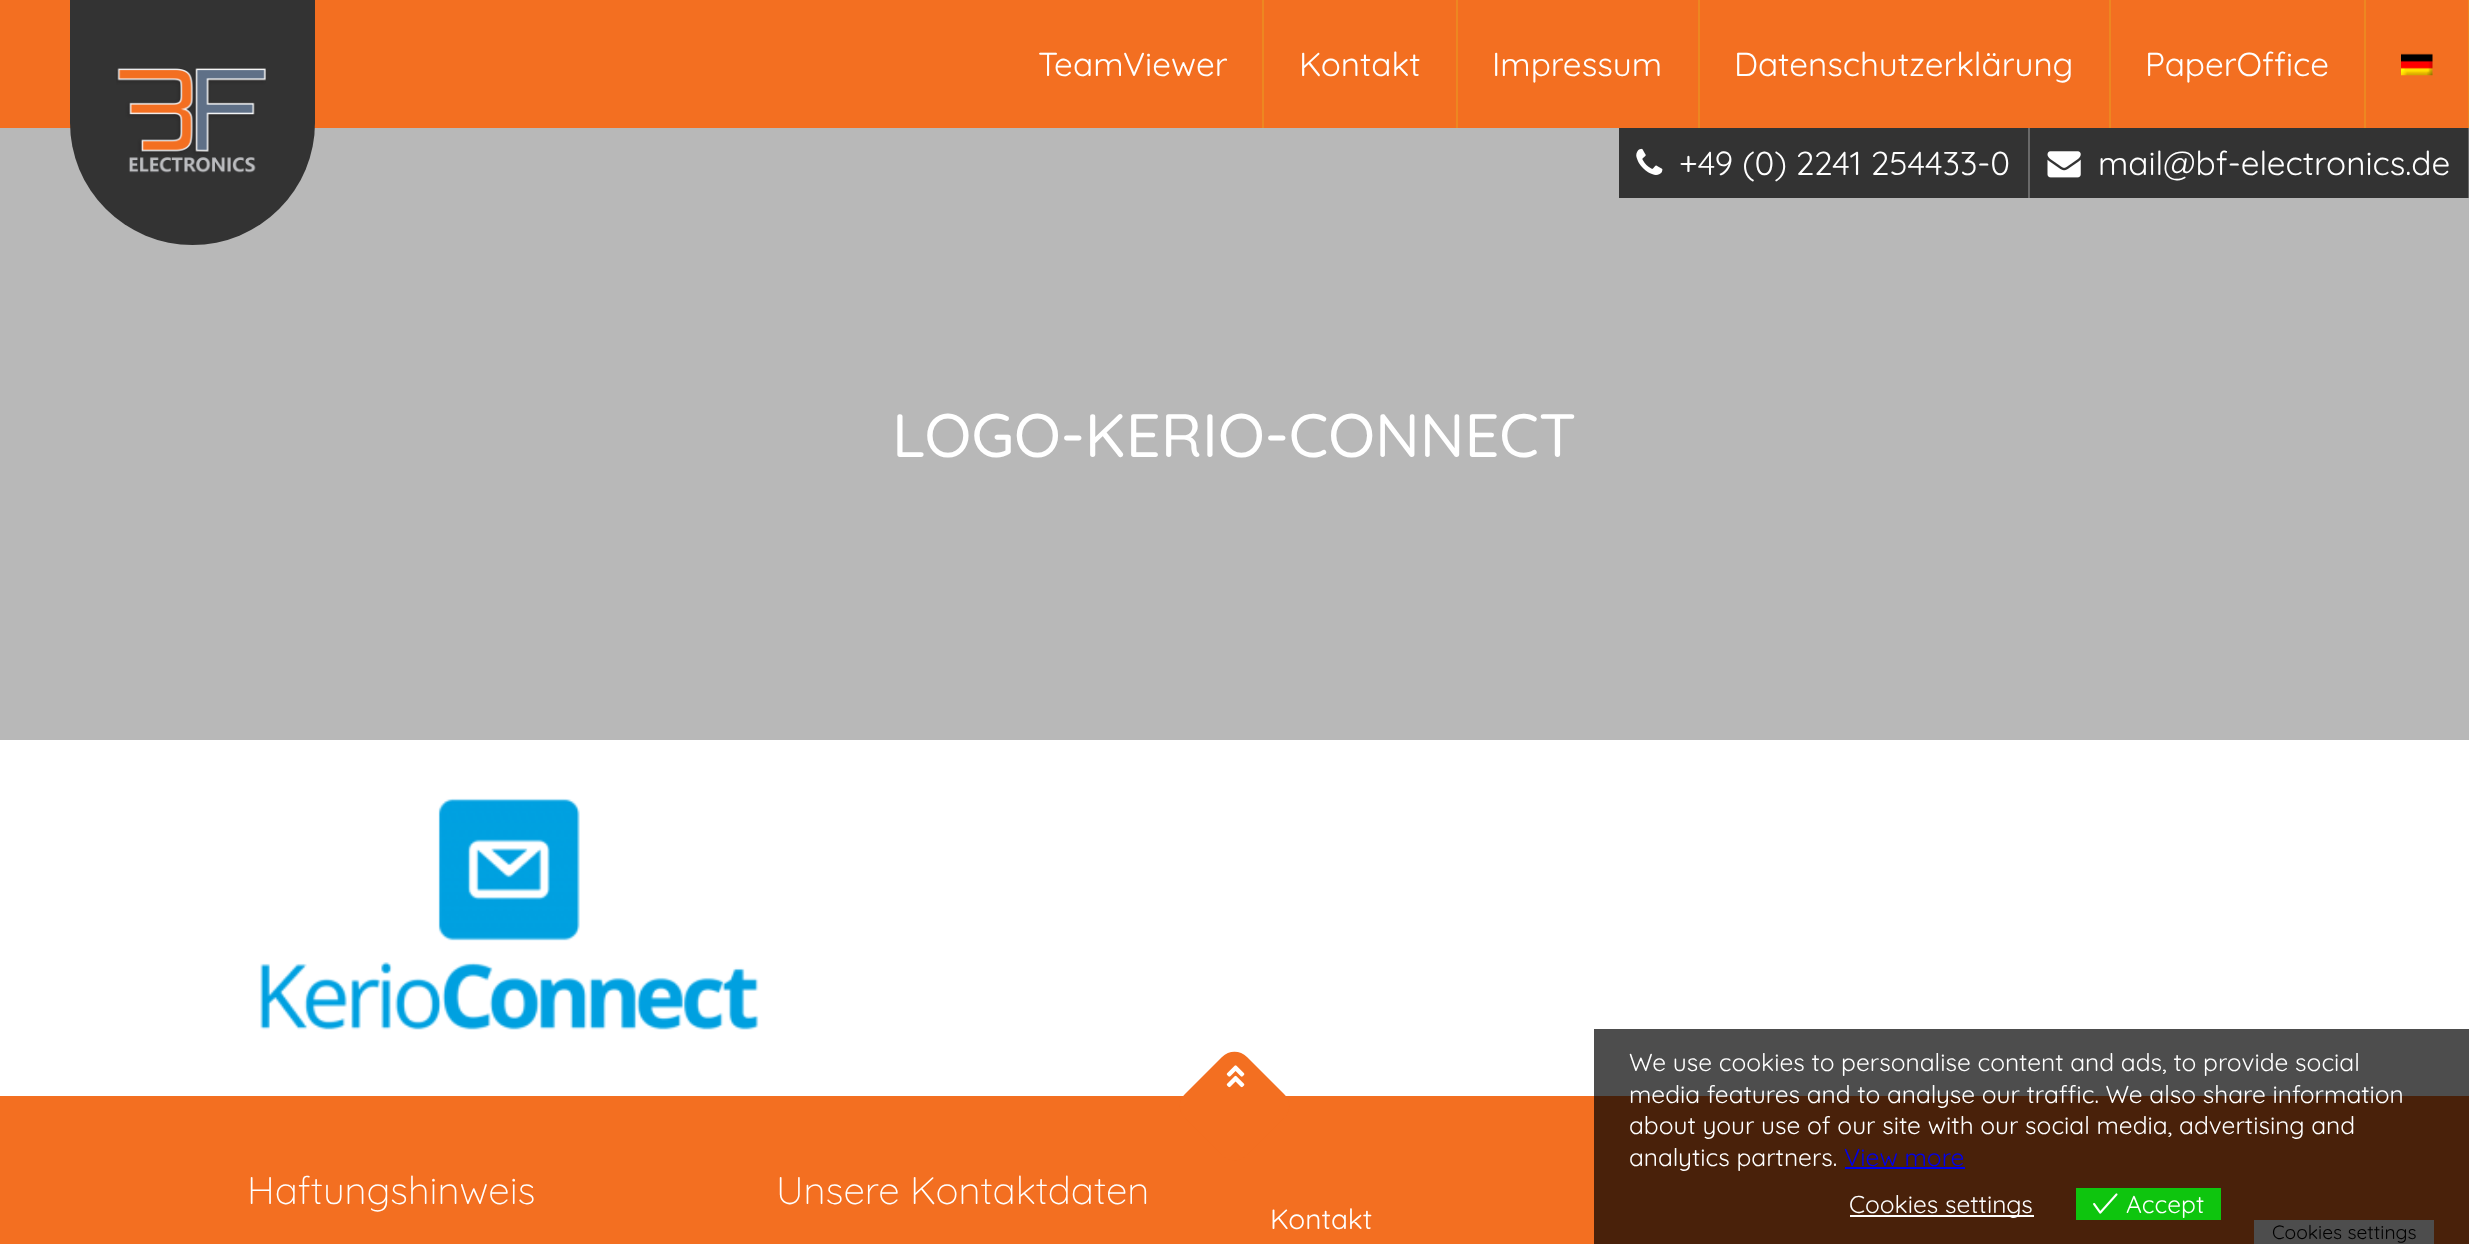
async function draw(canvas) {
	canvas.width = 2469;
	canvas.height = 1244;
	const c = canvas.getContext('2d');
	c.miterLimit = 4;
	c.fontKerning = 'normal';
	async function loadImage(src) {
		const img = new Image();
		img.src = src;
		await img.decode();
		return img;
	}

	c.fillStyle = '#fff';
	c.fillRect(0, 0, 2469, 1244);
	for (const [x, y, w, h, color] of [
		[1594, 1029, 875, 67, '#4d4d4d'],
		[0, 0, 2468, 128, '#f36f21'],
		[0, 128, 2469, 612, '#b8b8b8'],
	]) {
		c.fillStyle = color;
		c.fillRect(x, y, w, h);
	}
	c.fillStyle = '#333';
	c.beginPath();
	c.roundRect(70, 0, 245, 245, [0, 0, 122.5, 122.5]);
	c.fill();
	c.drawImage(await loadImage('img1.png'), 116, 68, 150, 105);
	c.fillStyle = '#ed8721';
	c.fillRect(1262, 0, 2, 128);
	c.font = '33.25px Quicksand';
	c.fillStyle = '#fff';
	c.fillText('TeamViewer', 1038, 76);
	c.fillStyle = '#ed8721';
	c.fillRect(1456, 0, 2, 128);
	c.fillStyle = '#fff';
	c.fillText('Kontakt', 1299, 76);
	c.fillStyle = '#ed8721';
	c.fillRect(1698, 0, 2, 128);
	c.fillStyle = '#fff';
	c.fillText('Impressum', 1492, 76);
	c.fillStyle = '#ed8721';
	c.fillRect(2109, 0, 2, 128);
	c.fillStyle = '#fff';
	c.fillText('Datenschutzerklärung', 1734, 76);
	c.fillStyle = '#ed8721';
	c.fillRect(2364, 0, 2, 128);
	c.fillStyle = '#fff';
	c.fillText('PaperOffice', 2145, 76);
	c.fillStyle = '#ed8721';
	c.fillRect(2468, 0, 1, 128);
	c.drawImage(await loadImage('img2.png'), 2401, 53, 32, 23);
	c.fillStyle = '#333';
	c.fillRect(1619, 128, 409, 70);
	c.fillStyle = '#696969';
	c.fillRect(2028, 128, 2, 70);
	c.drawImage(await loadImage('img3.png'), 1636, 148, 27, 27);
	c.fillStyle = '#fff';
	c.fillText('+49 (0) 2241 254433-0', 1679, 175);
	c.fillStyle = '#333';
	c.fillRect(2030, 128, 438, 70);
	c.fillStyle = '#696969';
	c.fillRect(2468, 128, 1, 70);
	c.drawImage(await loadImage('img4.png'), 2047, 151, 34, 27);
	c.fillStyle = '#fff';
	c.fillText('mail@bf-electronics.de', 2098, 175);
	c.font = '500 61.25px Quicksand';
	c.fillText('LOGO-KERIO-CONNECT', 892, 457);
	c.drawImage(await loadImage('img5.png'), 260, 798, 499, 232);
	c.fillStyle = '#f36f21';
	c.fillRect(0, 1096, 1594, 148);
	c.fillStyle = '#49210a';
	c.fillRect(1594, 1096, 875, 148);
	c.fillStyle = '#f36f21';
	c.beginPath();
	c.moveTo(1247, 1057);
	c.lineTo(1284, 1094);
	c.bezierCurveTo(1291, 1100, 1291, 1112, 1284, 1118);
	c.lineTo(1247, 1155);
	c.bezierCurveTo(1240, 1162, 1229, 1162, 1222, 1155);
	c.lineTo(1185, 1118);
	c.bezierCurveTo(1178, 1112, 1178, 1100, 1185, 1094);
	c.lineTo(1222, 1057);
	c.bezierCurveTo(1229, 1050, 1240, 1050, 1247, 1057);
	c.closePath();
	c.fill();
	c.drawImage(await loadImage('img6.png'), 1226, 1065, 19, 23);
	c.font = '300 38.5px Quicksand';
	c.fillStyle = '#fff';
	c.fillText('Haftungshinweis', 247, 1204);
	c.fillText('Unsere Kontaktdaten', 776, 1204);
	c.font = '28px Quicksand';
	c.fillText('Kontakt', 1270, 1229);
	c.font = '24.5px Quicksand';
	for (const [text, x, y] of [
		['We use cookies to personalise content and ads, to provide social', 1629, 1071],
		['media features and to analyse our traffic. We also share information', 1629, 1103],
		['about your use of our site with our social media, advertising and', 1629, 1134],
		['analytics partners.', 1629, 1166],
	]) {
		c.fillText(text, x, y);
	}
	c.fillStyle = '#00e';
	c.fillText('View more', 1844, 1166);
	c.fillRect(1845, 1167, 120, 2);
	c.fillStyle = '#fff';
	c.fillRect(1850, 1215, 184, 2);
	c.fillText('Cookies settings', 1849, 1213);
	c.fillStyle = '#0ec50e';
	c.fillRect(2076, 1188, 145, 32);
	c.drawImage(await loadImage('img7.png'), 2093, 1193, 25, 21);
	c.fillStyle = '#fff';
	c.fillText('Accept', 2126, 1213);
	c.fillStyle = '#4d4d4d';
	c.fillRect(2254, 1220, 180, 24);
	c.font = '19.25px Quicksand';
	c.fillStyle = '#000';
	c.fillText('Cookies settings', 2272, 1239);
}

draw(document.querySelector('canvas'));
